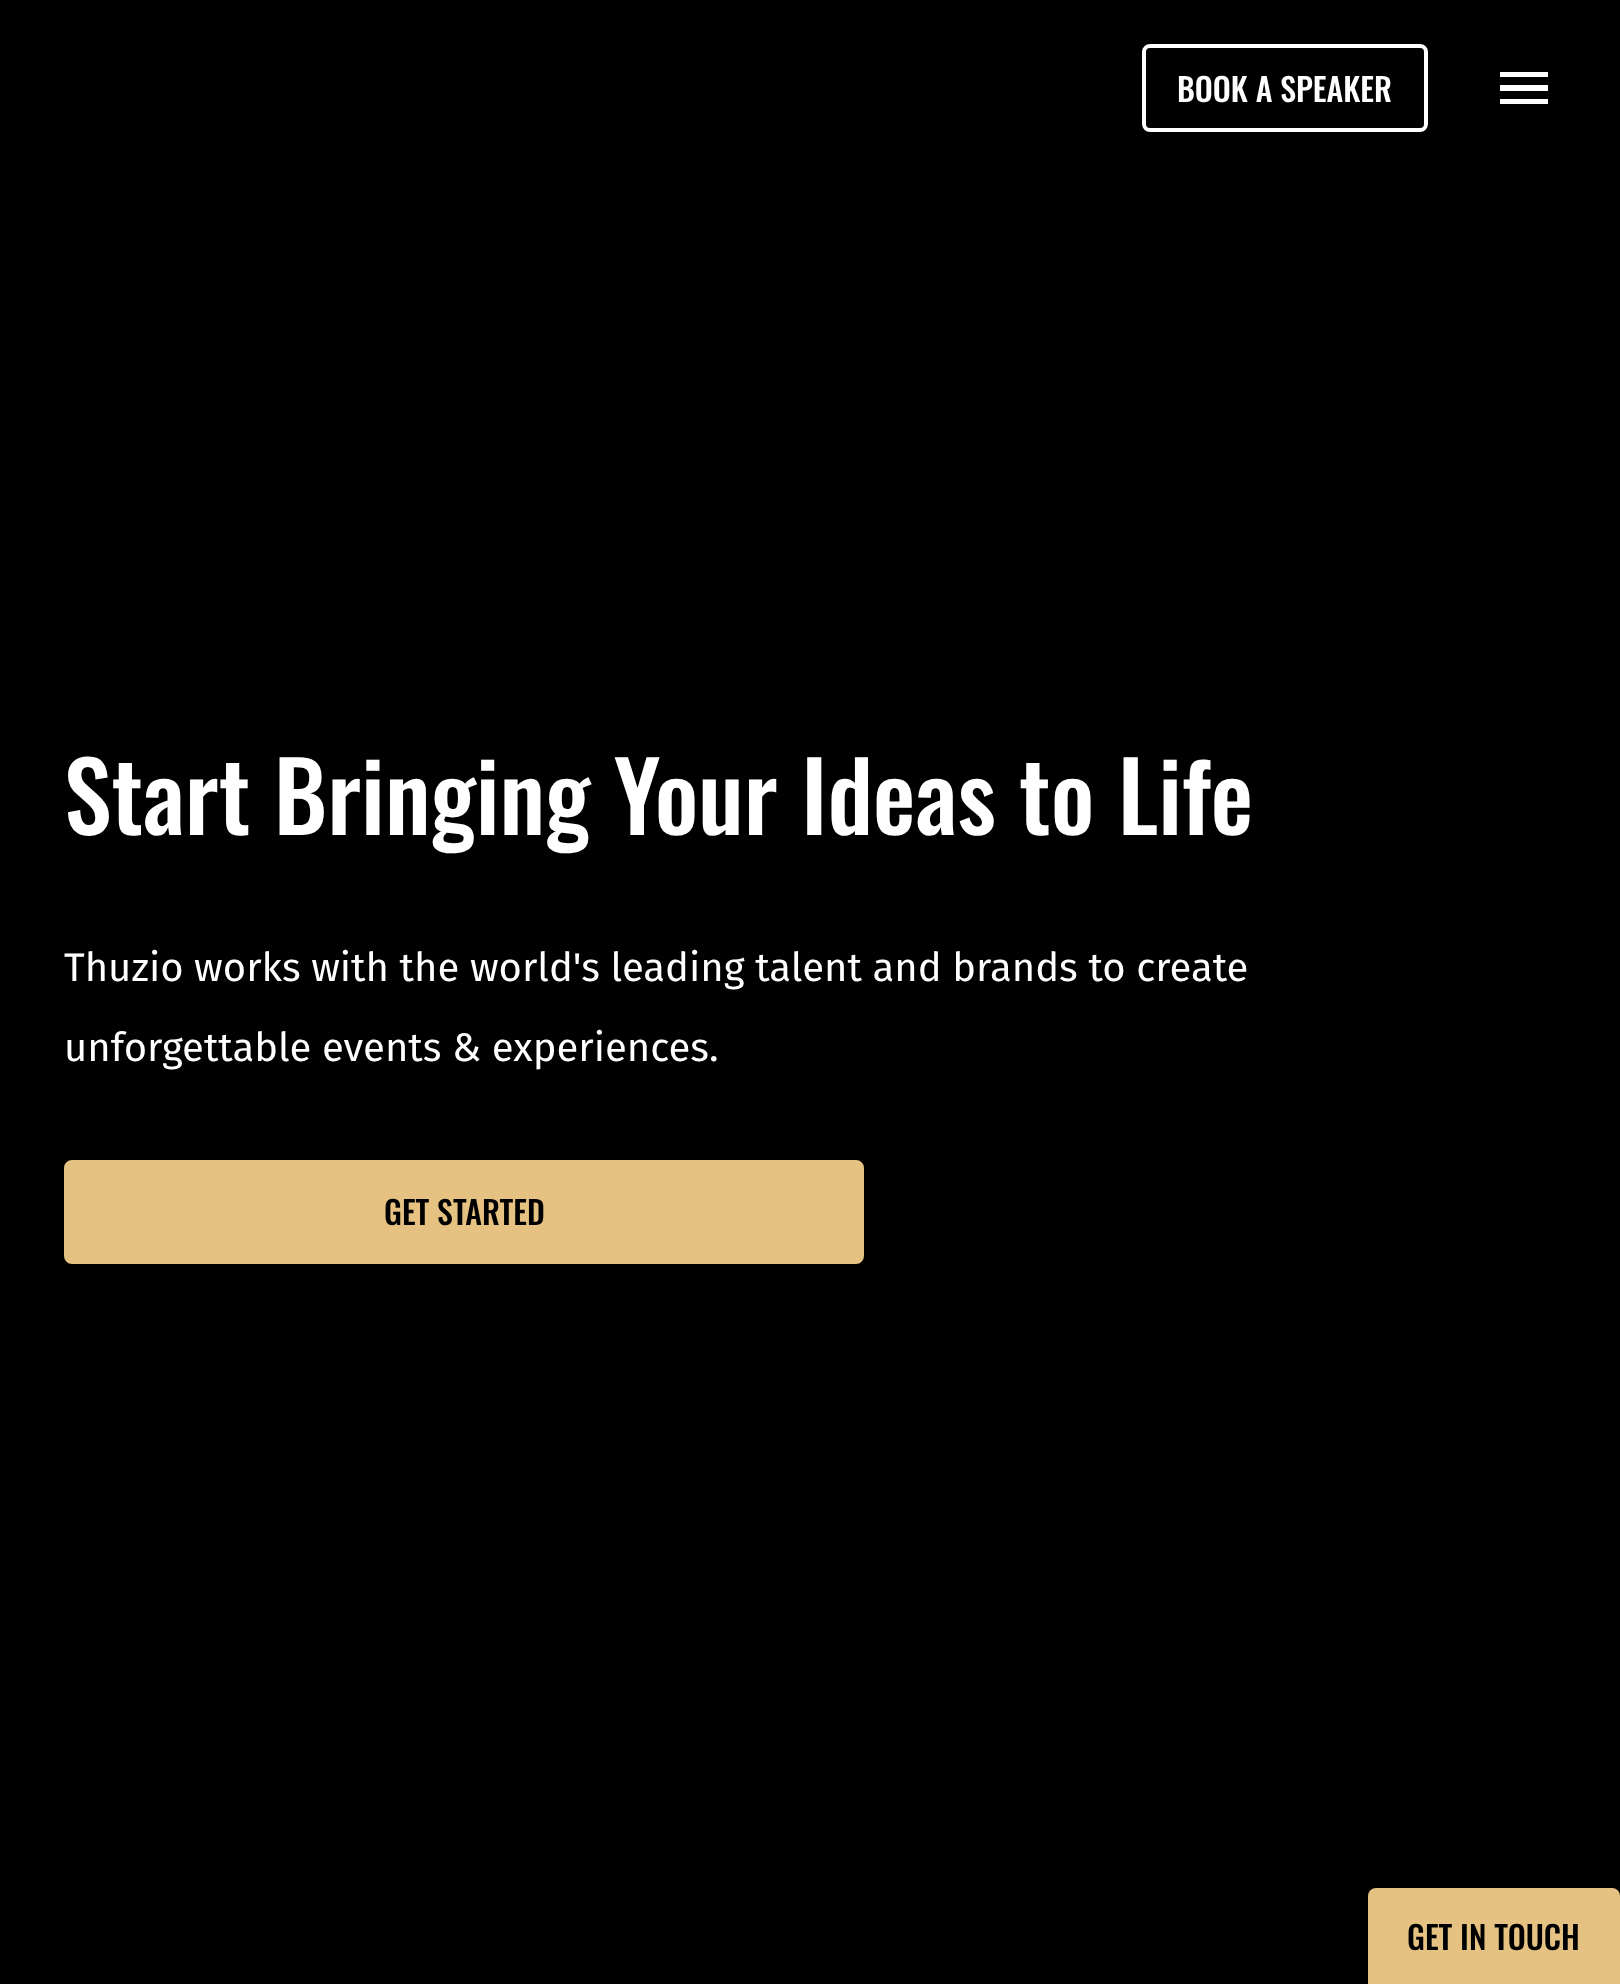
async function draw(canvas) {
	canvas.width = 1620;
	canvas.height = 1984;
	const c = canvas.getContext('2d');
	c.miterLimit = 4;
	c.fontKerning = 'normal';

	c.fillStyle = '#000';
	c.fillRect(0, 0, 1620, 1984);
	c.beginPath();
	c.roundRect(1144, 46, 282, 84, 6);
	c.strokeStyle = '#fff';
	c.lineWidth = 4;
	c.stroke();
	c.font = '500 32px Oswald';
	c.fillStyle = '#fff';
	c.fillText('BOOK A SPEAKER', 1177, 102);
	c.beginPath();
	c.moveTo(1500, 104);
	c.lineTo(1548, 104);
	c.lineTo(1548, 99);
	c.lineTo(1500, 99);
	c.closePath();
	c.moveTo(1500, 91);
	c.lineTo(1548, 91);
	c.lineTo(1548, 85);
	c.lineTo(1500, 85);
	c.closePath();
	c.moveTo(1500, 72);
	c.lineTo(1500, 77);
	c.lineTo(1548, 77);
	c.lineTo(1548, 72);
	c.closePath();
	c.fill();
	c.font = '500 96px Oswald';
	c.fillText('Start Bringing Your Ideas to Life', 64, 835);
	c.font = '40px Fira Sans';
	c.fillText('Thuzio works with the world\'s leading talent and brands to create', 64, 981);
	c.fillText('unforgettable events & experiences.', 64, 1061);
	c.fillStyle = '#e5c282';
	c.beginPath();
	c.roundRect(66, 1162, 796, 100, 6);
	c.fill();
	c.strokeStyle = '#e5c282';
	c.stroke();
	c.font = '500 32px Oswald';
	c.fillStyle = '#000';
	c.fillText('GET STARTED', 384, 1225);
	c.fillStyle = '#e5c282';
	c.beginPath();
	c.roundRect(1368, 1888, 252, 96, [8, 8, 0, 0]);
	c.fill();
	c.fillStyle = '#000';
	c.fillText('GET IN TOUCH', 1407, 1950);
}

draw(document.querySelector('canvas'));
